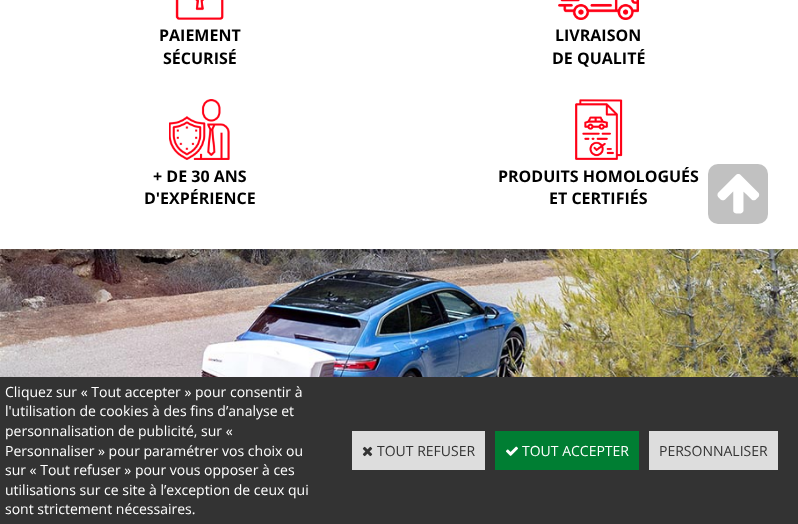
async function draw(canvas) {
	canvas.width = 798;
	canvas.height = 524;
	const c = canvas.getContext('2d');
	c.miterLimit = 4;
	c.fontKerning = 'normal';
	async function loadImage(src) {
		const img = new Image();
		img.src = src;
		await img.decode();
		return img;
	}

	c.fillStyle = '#fff';
	c.fillRect(0, 0, 798, 524);
	c.drawImage(await loadImage('img1.png'), 175, 0, 49, 20);
	c.font = 'bold 16px Open Sans';
	c.fillStyle = '#000';
	c.fillText('PAIEMENT', 159, 41);
	c.fillText('SÉCURISÉ', 163, 64);
	c.drawImage(await loadImage('img2.png'), 558, 0, 81, 20);
	c.fillText('LIVRAISON', 555, 41);
	c.fillText('DE QUALITÉ', 552, 64);
	c.drawImage(await loadImage('img3.png'), 169, 99, 61, 61);
	c.fillText('+ DE 30 ANS', 153, 182);
	c.fillText('D\'EXPÉRIENCE', 144, 204);
	c.drawImage(await loadImage('img4.png'), 575, 99, 48, 61);
	c.fillText('PRODUITS HOMOLOGUÉS', 498, 182);
	c.fillText('ET CERTIFIÉS', 549, 204);
	c.drawImage(await loadImage('img5.png'), 0, 249, 798, 128);
	c.fillStyle = '#c1c1c1';
	c.beginPath();
	c.roundRect(708, 164, 60, 60, 10);
	c.fill();
	c.drawImage(await loadImage('img6.png'), 717, 174, 43, 40);
	c.fillStyle = '#333';
	c.fillRect(0, 377, 798, 147);
	c.font = '14px Open Sans';
	c.fillStyle = '#fff';
	for (const [text, x, y] of [
		['Cliquez sur « Tout accepter » pour consentir à', 5, 397],
		['l\'utilisation de cookies à des fins d’analyse et', 5, 416],
		['personnalisation de publicité, sur «', 5, 436],
		['Personnaliser » pour paramétrer vos choix ou', 5, 456],
		['sur « Tout refuser » pour vous opposer à ces', 5, 475],
		['utilisations sur ce site à l’exception de ceux qui', 5, 495],
		['sont strictement nécessaires.', 5, 514],
	]) {
		c.fillText(text, x, y);
	}
	c.fillStyle = '#ddd';
	c.fillRect(352, 431, 133, 39);
	c.drawImage(await loadImage('img7.png'), 362, 446, 11, 11);
	c.fillStyle = '#333';
	c.fillText('TOUT REFUSER', 377, 456);
	c.fillStyle = '#007e33';
	c.fillRect(495, 431, 144, 39);
	c.drawImage(await loadImage('img8.png'), 506, 446, 12, 10);
	c.fillStyle = '#fff';
	c.fillText('TOUT ACCEPTER', 522, 456);
	c.fillStyle = '#ddd';
	c.fillRect(649, 431, 129, 39);
	c.fillStyle = '#333';
	c.fillText('PERSONNALISER', 659, 456);
}

draw(document.querySelector('canvas'));
